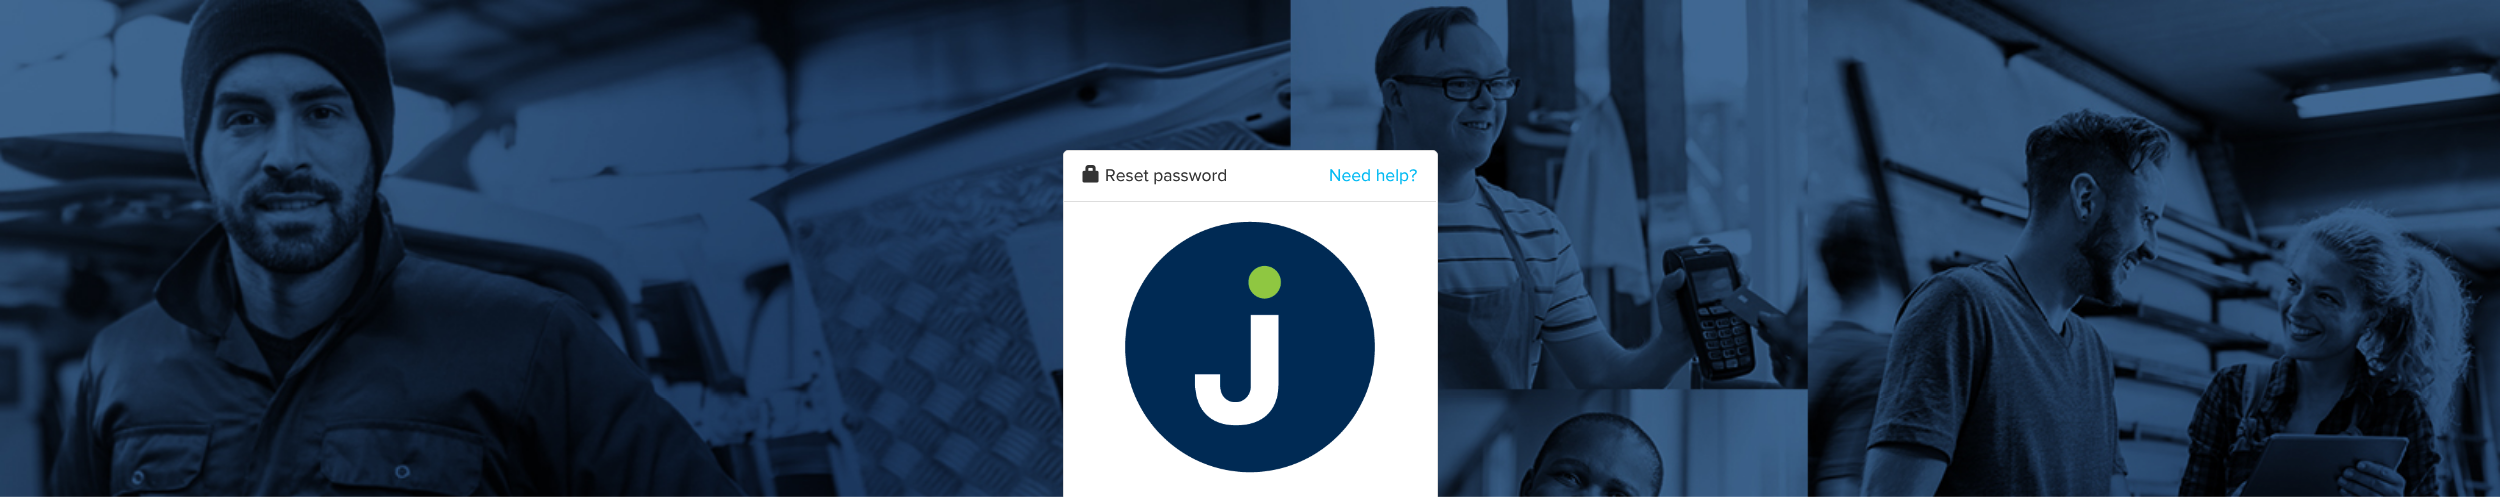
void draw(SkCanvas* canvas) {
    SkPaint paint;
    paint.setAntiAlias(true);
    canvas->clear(0xFFFFFFFF);
    canvas->drawImageRect(SkImages::DeferredFromEncodedData(SkData::MakeFromFileName("img1.png")), SkRect::MakeXYWH(0, 0, 2500, 497), SkSamplingOptions());
    paint.setColor(0xFFFFFFFF);
    canvas->drawRoundRect(SkRect::MakeXYWH(1063.5f, 150.5f, 374, 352), 4.5f, 4.5f, paint);
    paint.setStyle(SkPaint::kStroke_Style);
    paint.setStrokeWidth(1);
    paint.setColor(0xFFDDDDDD);
    canvas->drawRoundRect(SkRect::MakeXYWH(1063.5f, 150.5f, 374, 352), 4.5f, 4.5f, paint);
    paint.setStyle(SkPaint::kFill_Style);
    paint.setColor(0xFFFFFFFF);
    canvas->drawPath(SkPathBuilder().moveTo(1068, 151).lineTo(1432, 151).cubicTo(1434, 151, 1436, 153, 1436, 155).lineTo(1436, 203).lineTo(1064, 203).lineTo(1064, 155).cubicTo(1064, 153, 1066, 151, 1068, 151).close().detach(), paint);
    paint.setColor(0xFFDDDDDD);
    canvas->drawRect(SkRect::MakeXYWH(1064, 201, 372, 1), paint);
    canvas->drawImageRect(SkImages::DeferredFromEncodedData(SkData::MakeFromFileName("img2.png")), SkRect::MakeXYWH(1082, 165, 17, 18), SkSamplingOptions());
    SkFont font1(fontMgr->matchFamilyStyle("Proxima Nova", SkFontStyle::Normal()), 17.5f);
    font1.setSubpixel(true);
    paint.setColor(0xFF333333);
    canvas->drawString("Reset password", 1105, 181, font1, paint);
    paint.setColor(0xFF01BAF3);
    canvas->drawString("Need help?", 1329, 181, font1, paint);
    canvas->drawImageRect(SkImages::DeferredFromEncodedData(SkData::MakeFromFileName("img3.png")), SkRect::MakeXYWH(1125, 221, 250, 252), SkSamplingOptions());
}
